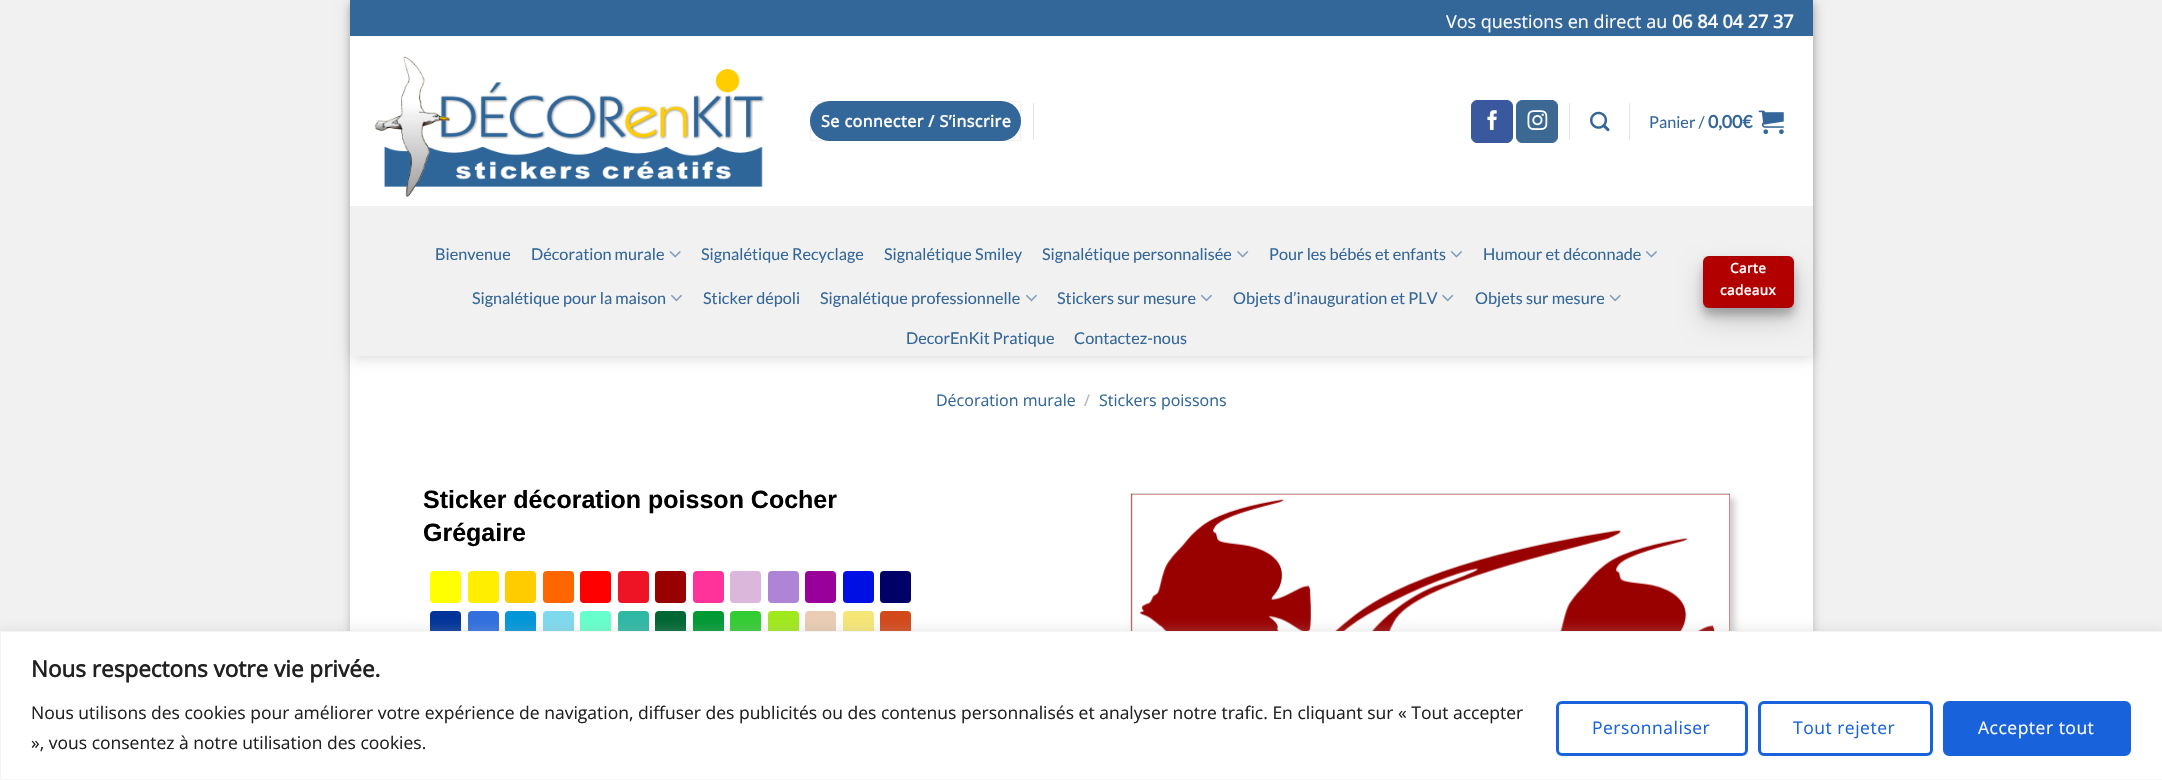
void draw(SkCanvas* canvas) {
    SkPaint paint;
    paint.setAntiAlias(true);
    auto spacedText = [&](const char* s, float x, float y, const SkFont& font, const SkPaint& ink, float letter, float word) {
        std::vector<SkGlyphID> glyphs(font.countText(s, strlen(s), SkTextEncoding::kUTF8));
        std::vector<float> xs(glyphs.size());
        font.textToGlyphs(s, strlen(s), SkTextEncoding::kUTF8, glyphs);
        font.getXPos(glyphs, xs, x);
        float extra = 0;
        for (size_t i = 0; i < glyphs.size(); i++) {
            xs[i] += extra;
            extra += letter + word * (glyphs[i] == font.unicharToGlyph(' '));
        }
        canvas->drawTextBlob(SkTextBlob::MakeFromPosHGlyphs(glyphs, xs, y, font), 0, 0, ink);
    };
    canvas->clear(0xFFF1F1F1);
    paint.setColor(0x3B000000);
    paint.setMaskFilter(SkMaskFilter::MakeBlur(kNormal_SkBlurStyle, 4));
    canvas->drawRect(SkRect::MakeXYWH(350, 4, 1463, 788), paint);
    paint.setMaskFilter(nullptr);
    paint.setColor(0xFFFFFFFF);
    canvas->drawRect(SkRect::MakeXYWH(350, 36, 1463, 595), paint);
    canvas->save();
    canvas->clipPath(SkPathBuilder(SkPathFillType::kEvenOdd).moveTo(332, 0).lineTo(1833, 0).lineTo(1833, 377).lineTo(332, 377).close().moveTo(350, 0).lineTo(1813, 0).lineTo(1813, 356).lineTo(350, 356).close().detach(), true);
    paint.setColor(0x26000000);
    paint.setMaskFilter(SkMaskFilter::MakeBlur(kNormal_SkBlurStyle, 6));
    canvas->drawRect(SkRect::MakeXYWH(351, 1, 1463, 357), paint);
    paint.setMaskFilter(nullptr);
    canvas->restore();
    paint.setColor(0xFF336699);
    canvas->drawRect(SkRect::MakeXYWH(350, 0, 1463, 36), paint);
    SkFont font1(fontMgr->matchFamilyStyle("Open Sans", SkFontStyle::Normal()), 18);
    font1.setSubpixel(true);
    paint.setColor(0xFFFFFFFF);
    canvas->drawString("Vos questions en direct au", 1446, 28, font1, paint);
    SkFont font2(fontMgr->matchFamilyStyle("Open Sans", SkFontStyle::Bold()), 18);
    font2.setSubpixel(true);
    canvas->drawString("06 84 04 27 37", 1672, 28, font2, paint);
    canvas->drawImageRect(SkImages::DeferredFromEncodedData(SkData::MakeFromFileName("img1.png")), SkRect::MakeXYWH(374, 56, 391, 142), SkSamplingOptions());
    paint.setColor(0xFF336699);
    canvas->drawRoundRect(SkRect::MakeXYWH(810, 101, 211, 40), 20, 20, paint);
    paint.setStyle(SkPaint::kStroke_Style);
    paint.setStrokeWidth(1);
    paint.setColor(0x0D000000);
    canvas->drawRect(SkRect::MakeXYWH(810.5f, 101.5f, 210, 39), paint);
    SkFont font3(fontMgr->matchFamilyStyle("Open Sans", SkFontStyle::Bold()), 16);
    font3.setSubpixel(true);
    paint.setStyle(SkPaint::kFill_Style);
    paint.setColor(0xFFFFFFFF);
    spacedText("Se connecter / S’inscrire", 821, 127, font3, paint, 0.5f, 0);
    paint.setColor(0xFFE6E6E6);
    canvas->drawRect(SkRect::MakeXYWH(1033, 103, 1, 37), paint);
    paint.setColor(0xFF3A589D);
    canvas->drawRoundRect(SkRect::MakeXYWH(1471.5f, 100.5f, 41, 42), 5.5f, 5.5f, paint);
    paint.setStyle(SkPaint::kStroke_Style);
    canvas->drawRoundRect(SkRect::MakeXYWH(1471.5f, 100.5f, 41, 42), 5.5f, 5.5f, paint);
    canvas->drawImageRect(SkImages::DeferredFromEncodedData(SkData::MakeFromFileName("img2.png")), SkRect::MakeXYWH(1487, 110, 10, 20), SkSamplingOptions());
    paint.setStyle(SkPaint::kFill_Style);
    paint.setColor(0xFF3B6994);
    canvas->drawRoundRect(SkRect::MakeXYWH(1516.5f, 100.5f, 41, 42), 5.5f, 5.5f, paint);
    paint.setStyle(SkPaint::kStroke_Style);
    canvas->drawRoundRect(SkRect::MakeXYWH(1516.5f, 100.5f, 41, 42), 5.5f, 5.5f, paint);
    canvas->drawImageRect(SkImages::DeferredFromEncodedData(SkData::MakeFromFileName("img3.png")), SkRect::MakeXYWH(1527, 110, 21, 20), SkSamplingOptions());
    paint.setStyle(SkPaint::kFill_Style);
    paint.setColor(0xFFE6E6E6);
    canvas->drawRect(SkRect::MakeXYWH(1569, 103, 1, 37), paint);
    canvas->drawImageRect(SkImages::DeferredFromEncodedData(SkData::MakeFromFileName("img4.png")), SkRect::MakeXYWH(1590, 111, 20, 21), SkSamplingOptions());
    canvas->drawRect(SkRect::MakeXYWH(1629, 103, 1, 37), paint);
    SkFont font4(fontMgr->matchFamilyStyle("Lato", SkFontStyle::Normal()), 16.25f);
    font4.setSubpixel(true);
    paint.setColor(0xFF336699);
    canvas->drawString("Panier /", 1649, 128, font4, paint);
    SkFont font5(fontMgr->matchFamilyStyle("Lato", SkFontStyle::Bold()), 17.5f);
    font5.setSubpixel(true);
    canvas->drawString("0,00€", 1708, 128, font5, paint);
    canvas->drawImageRect(SkImages::DeferredFromEncodedData(SkData::MakeFromFileName("img5.png")), SkRect::MakeXYWH(1758, 110, 26, 24), SkSamplingOptions());
    paint.setColor(0xFFF1F1F1);
    canvas->drawRect(SkRect::MakeXYWH(350, 206, 1463, 150), paint);
    paint.setColor(0xFF336699);
    canvas->drawString("Bienvenue", 435, 260, font4, paint);
    canvas->drawString("Décoration murale", 531, 260, font4, paint);
    canvas->drawImageRect(SkImages::DeferredFromEncodedData(SkData::MakeFromFileName("img6.png")), SkRect::MakeXYWH(669, 251, 12, 7), SkSamplingOptions());
    canvas->drawString("Signalétique Recyclage", 701, 260, font4, paint);
    canvas->drawString("Signalétique Smiley", 884, 260, font4, paint);
    canvas->drawString("Signalétique personnalisée", 1042, 260, font4, paint);
    canvas->drawImageRect(SkImages::DeferredFromEncodedData(SkData::MakeFromFileName("img7.png")), SkRect::MakeXYWH(1237, 251, 12, 7), SkSamplingOptions());
    canvas->drawString("Pour les bébés et enfants", 1269, 260, font4, paint);
    canvas->drawImageRect(SkImages::DeferredFromEncodedData(SkData::MakeFromFileName("img8.png")), SkRect::MakeXYWH(1451, 251, 11, 7), SkSamplingOptions());
    canvas->drawString("Humour et déconnade", 1483, 260, font4, paint);
    canvas->drawImageRect(SkImages::DeferredFromEncodedData(SkData::MakeFromFileName("img8.png")), SkRect::MakeXYWH(1646, 251, 11, 7), SkSamplingOptions());
    canvas->drawString("Signalétique pour la maison", 472, 304, font4, paint);
    canvas->drawImageRect(SkImages::DeferredFromEncodedData(SkData::MakeFromFileName("img9.png")), SkRect::MakeXYWH(670, 294, 12, 8), SkSamplingOptions());
    canvas->drawString("Sticker dépoli", 703, 304, font4, paint);
    canvas->drawString("Signalétique professionnelle", 820, 304, font4, paint);
    canvas->drawImageRect(SkImages::DeferredFromEncodedData(SkData::MakeFromFileName("img9.png")), SkRect::MakeXYWH(1025, 294, 12, 8), SkSamplingOptions());
    canvas->drawString("Stickers sur mesure", 1057, 304, font4, paint);
    canvas->drawImageRect(SkImages::DeferredFromEncodedData(SkData::MakeFromFileName("img9.png")), SkRect::MakeXYWH(1200, 294, 12, 8), SkSamplingOptions());
    canvas->drawString("Objets d’inauguration et PLV", 1233, 304, font4, paint);
    canvas->drawImageRect(SkImages::DeferredFromEncodedData(SkData::MakeFromFileName("img10.png")), SkRect::MakeXYWH(1442, 294, 12, 8), SkSamplingOptions());
    canvas->drawString("Objets sur mesure", 1475, 304, font4, paint);
    canvas->drawImageRect(SkImages::DeferredFromEncodedData(SkData::MakeFromFileName("img11.png")), SkRect::MakeXYWH(1609, 294, 12, 8), SkSamplingOptions());
    canvas->drawString("DecorEnKit Pratique", 906, 344, font4, paint);
    canvas->drawString("Contactez-nous", 1074, 344, font4, paint);
    paint.setColor(0x38000000);
    paint.setMaskFilter(SkMaskFilter::MakeBlur(kNormal_SkBlurStyle, 4));
    canvas->drawRoundRect(SkRect::MakeXYWH(1703, 264, 91, 51), 6, 6, paint);
    paint.setMaskFilter(nullptr);
    paint.setColor(0x30000000);
    paint.setMaskFilter(SkMaskFilter::MakeBlur(kNormal_SkBlurStyle, 12.5f));
    canvas->drawRoundRect(SkRect::MakeXYWH(1703, 269, 91, 51), 6, 6, paint);
    paint.setMaskFilter(nullptr);
    paint.setColor(0xFFB20000);
    canvas->drawRoundRect(SkRect::MakeXYWH(1703, 256, 91, 52), 6, 6, paint);
    paint.setStyle(SkPaint::kStroke_Style);
    paint.setColor(0x0D000000);
    canvas->drawRect(SkRect::MakeXYWH(1703.5f, 256.5f, 90, 51), paint);
    SkFont font6(fontMgr->matchFamilyStyle("Open Sans", SkFontStyle::Bold()), 13.5f);
    font6.setSubpixel(true);
    paint.setStyle(SkPaint::kFill_Style);
    paint.setColor(0xFFFFFFFF);
    spacedText("Carte", 1730, 273, font6, paint, 0.5f, 0);
    spacedText("cadeaux", 1720, 295, font6, paint, 0.5f, 0);
    SkFont font7(fontMgr->matchFamilyStyle("Open Sans", SkFontStyle::Normal()), 16);
    font7.setSubpixel(true);
    paint.setColor(0xFF336699);
    canvas->drawString("Décoration murale", 936, 406, font7, paint);
    paint.setColor(0xFFB2B2B2);
    canvas->drawString("/", 1084, 406, font7, paint);
    paint.setColor(0xFF336699);
    canvas->drawString("Stickers poissons", 1099, 406, font7, paint);
    paint.setColor(0xFFFFFF00);
    canvas->drawRoundRect(SkRect::MakeXYWH(430, 571, 31, 32), 4, 4, paint);
    paint.setColor(0xFFFFEE00);
    canvas->drawRoundRect(SkRect::MakeXYWH(468, 571, 31, 32), 4, 4, paint);
    paint.setColor(0xFFFFCC00);
    canvas->drawRoundRect(SkRect::MakeXYWH(505, 571, 31, 32), 4, 4, paint);
    paint.setColor(0xFFFF6600);
    canvas->drawRoundRect(SkRect::MakeXYWH(543, 571, 31, 32), 4, 4, paint);
    paint.setColor(0xFFFF0000);
    canvas->drawRoundRect(SkRect::MakeXYWH(580, 571, 31, 32), 4, 4, paint);
    paint.setColor(0xFFEF1326);
    canvas->drawRoundRect(SkRect::MakeXYWH(618, 571, 31, 32), 4, 4, paint);
    paint.setColor(0xFF990000);
    canvas->drawRoundRect(SkRect::MakeXYWH(655, 571, 31, 32), 4, 4, paint);
    paint.setColor(0xFFFF3399);
    canvas->drawRoundRect(SkRect::MakeXYWH(693, 571, 31, 32), 4, 4, paint);
    paint.setColor(0xFFDBB7DB);
    canvas->drawRoundRect(SkRect::MakeXYWH(730, 571, 31, 32), 4, 4, paint);
    paint.setColor(0xFFAE84D7);
    canvas->drawRoundRect(SkRect::MakeXYWH(768, 571, 31, 32), 4, 4, paint);
    paint.setColor(0xFF990099);
    canvas->drawRoundRect(SkRect::MakeXYWH(805, 571, 31, 32), 4, 4, paint);
    paint.setColor(0xFF000FE4);
    canvas->drawRoundRect(SkRect::MakeXYWH(843, 571, 31, 32), 4, 4, paint);
    paint.setColor(0xFF000066);
    canvas->drawRoundRect(SkRect::MakeXYWH(880, 571, 31, 32), 4, 4, paint);
    paint.setColor(0xFFCFCFCF);
    paint.setMaskFilter(SkMaskFilter::MakeBlur(kNormal_SkBlurStyle, 3));
    canvas->drawRect(SkRect::MakeXYWH(1135, 498, 600, 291), paint);
    paint.setMaskFilter(nullptr);
    paint.setColor(0xFF990000);
    canvas->drawRect(SkRect::MakeXYWH(1131, 494, 599, 137), paint);
    paint.setColor(0xFFCFCFCF);
    canvas->drawRect(SkRect::MakeXYWH(1130, 493, 600, 1), paint);
    paint.setColor(0xFFEBEBEB);
    canvas->drawRect(SkRect::MakeXYWH(1130, 493, 1, 138), paint);
    canvas->drawImageRect(SkImages::DeferredFromEncodedData(SkData::MakeFromFileName("img12.png")), SkRect::MakeXYWH(1131, 493, 599, 138), SkSamplingOptions());
    paint.setColor(0xFF003399);
    canvas->drawRoundRect(SkRect::MakeXYWH(430, 611, 31, 32), 4, 4, paint);
    paint.setColor(0xFF316FDE);
    canvas->drawRoundRect(SkRect::MakeXYWH(468, 611, 31, 32), 4, 4, paint);
    paint.setColor(0xFF0096D7);
    canvas->drawRoundRect(SkRect::MakeXYWH(505, 611, 31, 32), 4, 4, paint);
    paint.setColor(0xFF7DD9EC);
    canvas->drawRoundRect(SkRect::MakeXYWH(543, 611, 31, 32), 4, 4, paint);
    paint.setColor(0xFF66FFCC);
    canvas->drawRoundRect(SkRect::MakeXYWH(580, 611, 31, 32), 4, 4, paint);
    paint.setColor(0xFF2EB8A4);
    canvas->drawRoundRect(SkRect::MakeXYWH(618, 611, 31, 32), 4, 4, paint);
    paint.setColor(0xFF006633);
    canvas->drawRoundRect(SkRect::MakeXYWH(655, 611, 31, 32), 4, 4, paint);
    paint.setColor(0xFF009933);
    canvas->drawRoundRect(SkRect::MakeXYWH(693, 611, 31, 32), 4, 4, paint);
    paint.setColor(0xFF33CC33);
    canvas->drawRoundRect(SkRect::MakeXYWH(730, 611, 31, 32), 4, 4, paint);
    paint.setColor(0xFFA0E91B);
    canvas->drawRoundRect(SkRect::MakeXYWH(768, 611, 31, 32), 4, 4, paint);
    paint.setColor(0xFFE9CCB3);
    canvas->drawRoundRect(SkRect::MakeXYWH(805, 611, 31, 32), 4, 4, paint);
    paint.setColor(0xFFF6E676);
    canvas->drawRoundRect(SkRect::MakeXYWH(843, 611, 31, 32), 4, 4, paint);
    paint.setColor(0xFFD2481A);
    canvas->drawRoundRect(SkRect::MakeXYWH(880, 611, 31, 32), 4, 4, paint);
    SkFont font8(fontMgr->matchFamilyStyle("Liberation Sans", SkFontStyle::Bold()), 25);
    font8.setSubpixel(true);
    paint.setColor(0xFF000000);
    canvas->drawString("Sticker décoration poisson Cocher", 423, 508, font8, paint);
    canvas->drawString("Grégaire", 423, 541, font8, paint);
    paint.setColor(0x4DACABAB);
    paint.setMaskFilter(SkMaskFilter::MakeBlur(kNormal_SkBlurStyle, 6));
    canvas->drawRect(SkRect::MakeXYWH(0, 630, 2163, 149), paint);
    paint.setMaskFilter(nullptr);
    paint.setColor(0xFFFFFFFF);
    canvas->drawRect(SkRect::MakeXYWH(0.5f, 631.5f, 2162, 148), paint);
    paint.setStyle(SkPaint::kStroke_Style);
    paint.setColor(0xFFF4F4F4);
    canvas->drawRect(SkRect::MakeXYWH(0.5f, 631.5f, 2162, 148), paint);
    SkFont font9(fontMgr->matchFamilyStyle("Open Sans", SkFontStyle::Bold()), 22.5f);
    font9.setSubpixel(true);
    paint.setStyle(SkPaint::kFill_Style);
    paint.setColor(0xFF212121);
    canvas->drawString("Nous respectons votre vie privée.", 31, 677, font9, paint);
    SkFont font10(fontMgr->matchFamilyStyle("Open Sans", SkFontStyle::Normal()), 17.5f);
    font10.setSubpixel(true);
    canvas->drawString("Nous utilisons des cookies pour améliorer votre expérience de navigation, diffuser des publicités ou des contenus personnalisés et analyser notre trafic. En cliquant sur « Tout accepter", 31, 719, font10, paint);
    canvas->drawString("», vous consentez à notre utilisation des cookies.", 31, 749, font10, paint);
    paint.setStyle(SkPaint::kStroke_Style);
    paint.setStrokeWidth(3);
    paint.setColor(0xFF1863DC);
    canvas->drawRoundRect(SkRect::MakeXYWH(1557.5f, 702.5f, 189, 52), 4.5f, 4.5f, paint);
    paint.setStyle(SkPaint::kFill_Style);
    spacedText("Personnaliser", 1592, 734, font10, paint, 0.5f, 0);
    paint.setStyle(SkPaint::kStroke_Style);
    canvas->drawRoundRect(SkRect::MakeXYWH(1759.5f, 702.5f, 172, 52), 4.5f, 4.5f, paint);
    paint.setStyle(SkPaint::kFill_Style);
    spacedText("Tout rejeter", 1793, 734, font10, paint, 0.5f, 0);
    canvas->drawRoundRect(SkRect::MakeXYWH(1944.5f, 702.5f, 185, 52), 4.5f, 4.5f, paint);
    paint.setStyle(SkPaint::kStroke_Style);
    canvas->drawRoundRect(SkRect::MakeXYWH(1944.5f, 702.5f, 185, 52), 4.5f, 4.5f, paint);
    paint.setStyle(SkPaint::kFill_Style);
    paint.setColor(0xFFFFFFFF);
    spacedText("Accepter tout", 1978, 734, font10, paint, 0.5f, 0);
}
